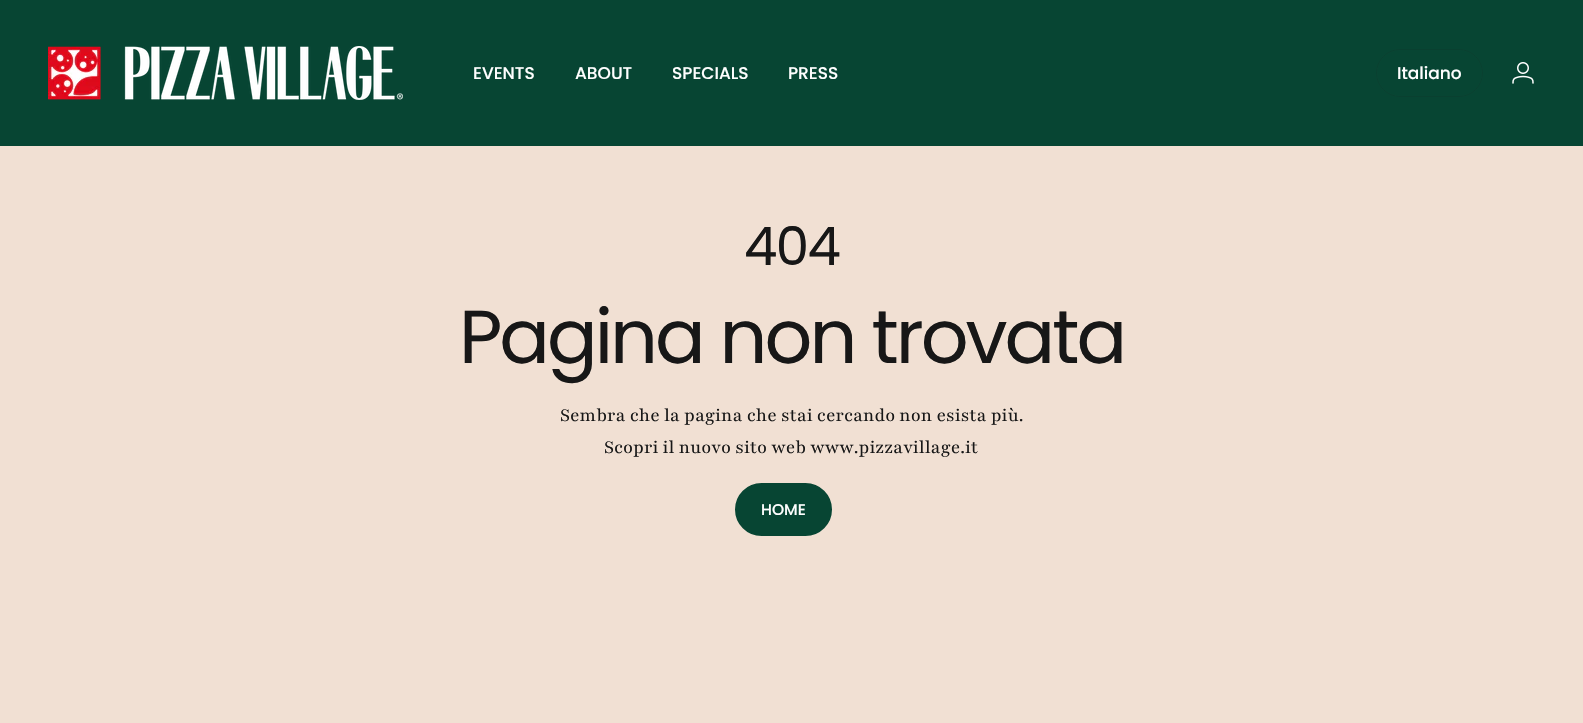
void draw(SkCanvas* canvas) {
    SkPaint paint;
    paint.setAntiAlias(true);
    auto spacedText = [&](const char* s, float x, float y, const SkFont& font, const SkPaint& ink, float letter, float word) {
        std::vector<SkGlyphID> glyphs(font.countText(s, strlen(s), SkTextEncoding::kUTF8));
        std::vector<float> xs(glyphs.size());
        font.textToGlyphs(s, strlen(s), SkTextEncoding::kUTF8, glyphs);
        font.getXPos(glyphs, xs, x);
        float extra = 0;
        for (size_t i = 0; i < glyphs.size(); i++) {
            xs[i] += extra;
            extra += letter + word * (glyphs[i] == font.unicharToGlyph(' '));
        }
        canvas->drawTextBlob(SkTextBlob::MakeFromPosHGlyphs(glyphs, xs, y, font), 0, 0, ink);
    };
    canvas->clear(0xFFF1E0D3);
    paint.setColor(0xFF074533);
    canvas->drawRect(SkRect::MakeXYWH(0, 0, 1583, 146), paint);
    canvas->drawImageRect(SkImages::DeferredFromEncodedData(SkData::MakeFromFileName("img1.png")), SkRect::MakeXYWH(48, 46, 355, 54), SkSamplingOptions());
    SkFont font1(fontMgr->matchFamilyStyle("Poppins", SkFontStyle(500, SkFontStyle::kNormal_Width, SkFontStyle::kUpright_Slant)), 17);
    font1.setSubpixel(true);
    paint.setColor(0xFFFFFFFF);
    canvas->drawString("EVENTS", 473, 79, font1, paint);
    canvas->drawString("ABOUT", 575, 79, font1, paint);
    canvas->drawString("SPECIALS", 672, 79, font1, paint);
    canvas->drawString("PRESS", 788, 79, font1, paint);
    paint.setStyle(SkPaint::kStroke_Style);
    paint.setStrokeWidth(1);
    paint.setColor(0xFF094030);
    canvas->drawRoundRect(SkRect::MakeXYWH(1376.5f, 49.5f, 106, 47), 23.5f, 23.5f, paint);
    paint.setStyle(SkPaint::kFill_Style);
    paint.setColor(0xFFFFFFFF);
    canvas->drawString("Italiano", 1397, 79, font1, paint);
    canvas->drawImageRect(SkImages::DeferredFromEncodedData(SkData::MakeFromFileName("img2.png")), SkRect::MakeXYWH(1512, 62, 22, 22), SkSamplingOptions());
    SkFont font2(fontMgr->matchFamilyStyle("Poppins", SkFontStyle::Normal()), 53);
    font2.setSubpixel(true);
    paint.setColor(0xFF171717);
    spacedText("404", 744, 265, font2, paint, -1.5f, 0);
    SkFont font3(fontMgr->matchFamilyStyle("Poppins", SkFontStyle::Normal()), 74.9f);
    font3.setSubpixel(true);
    spacedText("Pagina non trovata", 459, 363, font3, paint, -3, 0);
    SkFont font4(fontMgr->matchFamilyStyle("Playfair", SkFontStyle::Normal()), 20);
    font4.setSubpixel(true);
    canvas->drawString("Sembra che la pagina che stai cercando non esista più.", 560, 421, font4, paint);
    canvas->drawString("Scopri il nuovo sito web www.pizzavillage.it", 604, 453, font4, paint);
    paint.setColor(0xFF074533);
    canvas->drawRoundRect(SkRect::MakeXYWH(736, 484, 95, 51), 25.5f, 25.5f, paint);
    paint.setStyle(SkPaint::kStroke_Style);
    paint.setStrokeWidth(2);
    canvas->drawRoundRect(SkRect::MakeXYWH(736, 484, 95, 51), 25.5f, 25.5f, paint);
    SkFont font5(fontMgr->matchFamilyStyle("Poppins", SkFontStyle(500, SkFontStyle::kNormal_Width, SkFontStyle::kUpright_Slant)), 15.5f);
    font5.setSubpixel(true);
    paint.setStyle(SkPaint::kFill_Style);
    paint.setColor(0xFFFFFFFF);
    canvas->drawString("HOME", 761, 515, font5, paint);
}
